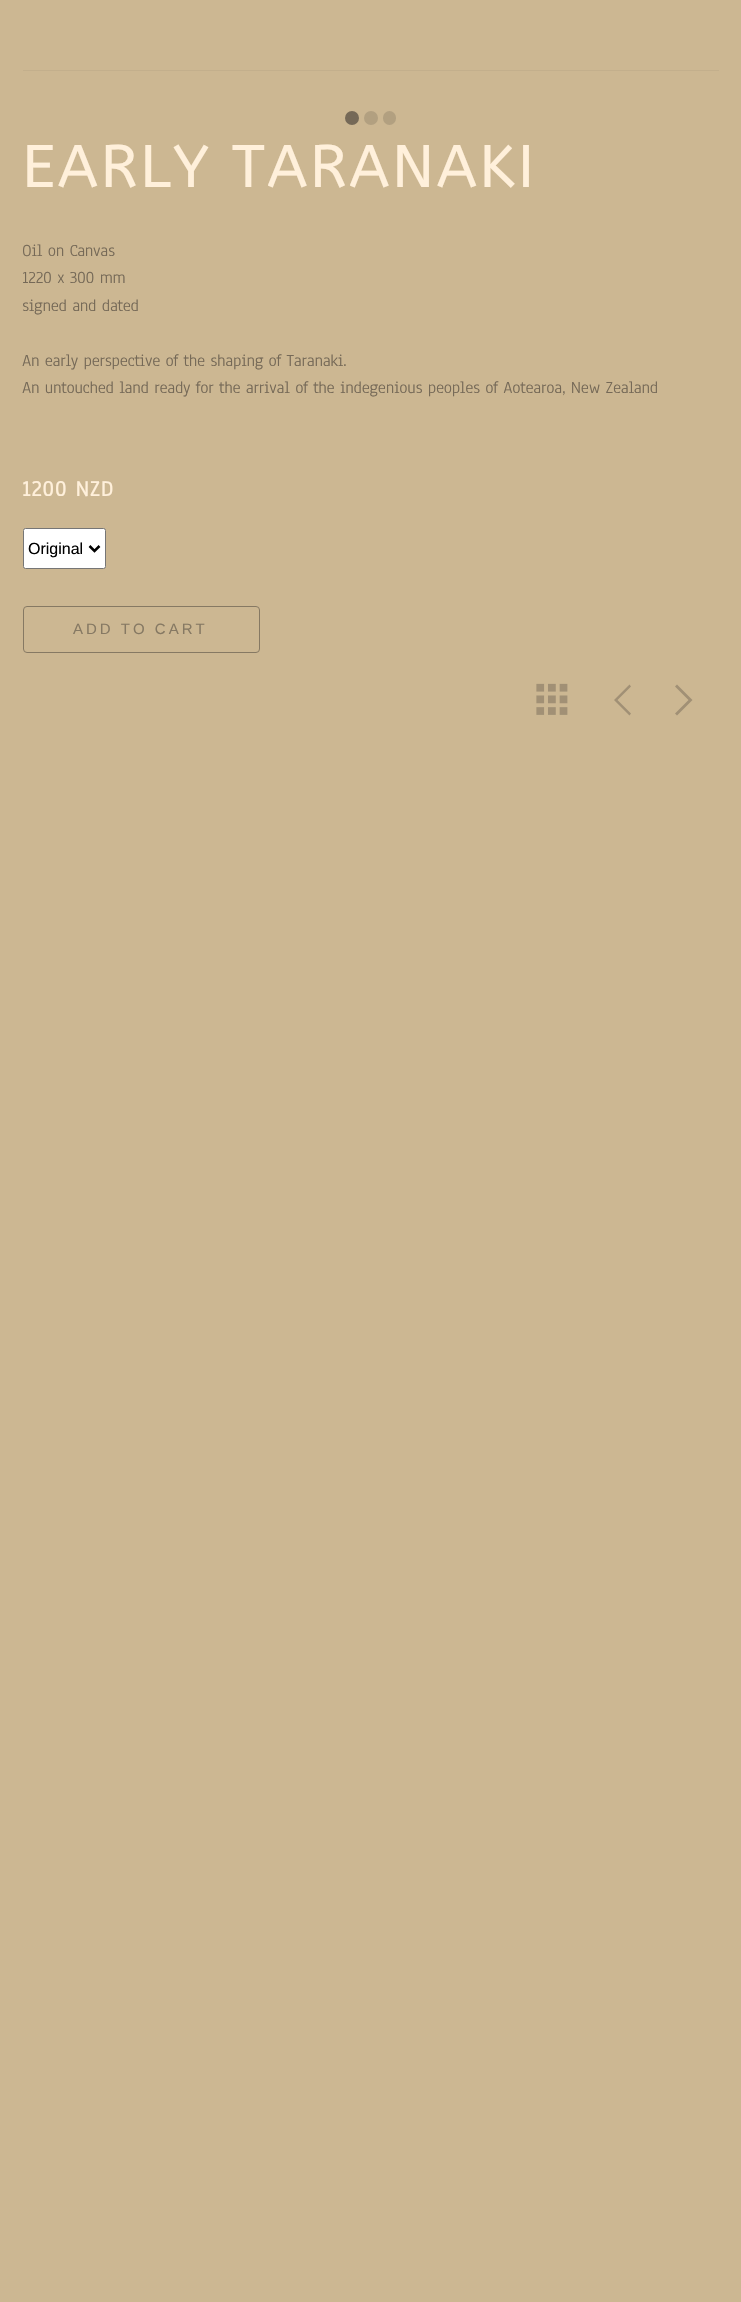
void draw(SkCanvas* canvas) {
    SkPaint paint;
    paint.setAntiAlias(true);
    auto spacedText = [&](const char* s, float x, float y, const SkFont& font, const SkPaint& ink, float letter, float word) {
        std::vector<SkGlyphID> glyphs(font.countText(s, strlen(s), SkTextEncoding::kUTF8));
        std::vector<float> xs(glyphs.size());
        font.textToGlyphs(s, strlen(s), SkTextEncoding::kUTF8, glyphs);
        font.getXPos(glyphs, xs, x);
        float extra = 0;
        for (size_t i = 0; i < glyphs.size(); i++) {
            xs[i] += extra;
            extra += letter + word * (glyphs[i] == font.unicharToGlyph(' '));
        }
        canvas->drawTextBlob(SkTextBlob::MakeFromPosHGlyphs(glyphs, xs, y, font), 0, 0, ink);
    };
    canvas->clear(0xFFCCB792);
    paint.setColor(0xFFC3AF8C);
    canvas->drawRect(SkRect::MakeXYWH(23, 70, 696, 1), paint);
    paint.setColor(0xFF756957);
    canvas->drawCircle(352, 118, 7, paint);
    paint.setColor(0xFFB2A080);
    canvas->drawCircle(371, 118, 7, paint);
    canvas->drawRoundRect(SkRect::MakeXYWH(383, 111, 13, 14), 6.5f, 6.5f, paint);
    SkFont font1(fontMgr->matchFamilyStyle("ABeeZee", SkFontStyle::Normal()), 60);
    font1.setSubpixel(true);
    paint.setColor(0xFFFFF0DB);
    spacedText("EARLY TARANAKI", 22, 187, font1, paint, 2.5f, 0);
    SkFont font2(fontMgr->matchFamilyStyle("Anaheim", SkFontStyle::Normal()), 17.5f);
    font2.setSubpixel(true);
    paint.setColor(0xFF756957);
    spacedText("Oil on Canvas", 22, 256, font2, paint, -0.3f, 0);
    spacedText("1220 x 300 mm", 22, 283, font2, paint, -0.3f, 0);
    spacedText("signed and dated", 22, 311, font2, paint, -0.3f, 0);
    spacedText("An early perspective of the shaping of Taranaki.", 22, 366, font2, paint, -0.3f, 0);
    spacedText("An untouched land ready for the arrival of the indegenious peoples of Aotearoa, New Zealand", 22, 393, font2, paint, -0.3f, 0);
    SkFont font3(fontMgr->matchFamilyStyle("Anaheim", SkFontStyle::Bold()), 22.5f);
    font3.setSubpixel(true);
    paint.setColor(0xFFFFF0DB);
    spacedText("1200 NZD", 22, 496, font3, paint, 1, 0);
    paint.setColor(0xFFFFFFFF);
    canvas->drawRoundRect(SkRect::MakeXYWH(23.5f, 528.5f, 82, 40), 2, 2, paint);
    paint.setStyle(SkPaint::kStroke_Style);
    paint.setStrokeWidth(1);
    paint.setColor(0xFF767676);
    canvas->drawRoundRect(SkRect::MakeXYWH(23.5f, 528.5f, 82, 40), 2, 2, paint);
    paint.setStrokeWidth(2.5f);
    paint.setColor(0xFF000000);
    canvas->drawPath(SkPathBuilder().moveTo(89.5f, 546).lineTo(94.5f, 551).lineTo(99.5f, 546).detach(), paint);
    SkFont font4(fontMgr->matchFamilyStyle("Liberation Sans", SkFontStyle::Normal()), 16);
    font4.setSubpixel(true);
    paint.setStyle(SkPaint::kFill_Style);
    canvas->drawString("Original", 28, 554, font4, paint);
    paint.setStyle(SkPaint::kStroke_Style);
    paint.setStrokeWidth(1);
    paint.setColor(0xFF867963);
    canvas->drawRoundRect(SkRect::MakeXYWH(23.5f, 606.5f, 236, 46), 3.5f, 3.5f, paint);
    SkFont font5(fontMgr->matchFamilyStyle("Liberation Sans", SkFontStyle::Normal()), 15);
    font5.setSubpixel(true);
    paint.setStyle(SkPaint::kFill_Style);
    spacedText("ADD TO CART", 73, 634, font5, paint, 3, 0);
    canvas->drawImageRect(SkImages::DeferredFromEncodedData(SkData::MakeFromFileName("img1.png")), SkRect::MakeXYWH(536, 683, 32, 32), SkSamplingOptions());
    paint.setColor(0xFFA19075);
    canvas->drawPath(SkPathBuilder().moveTo(629.5f, 715.5f).lineTo(631, 713.5f).lineTo(617.5f, 700).lineTo(631, 686.5f).lineTo(629.5f, 684.5f).lineTo(614, 700).close().detach(), paint);
    canvas->drawPath(SkPathBuilder().moveTo(692.5f, 700).lineTo(677, 684.5f).lineTo(675, 686.5f).lineTo(688.5f, 700).lineTo(675, 713.5f).lineTo(677, 715.5f).close().detach(), paint);
}
